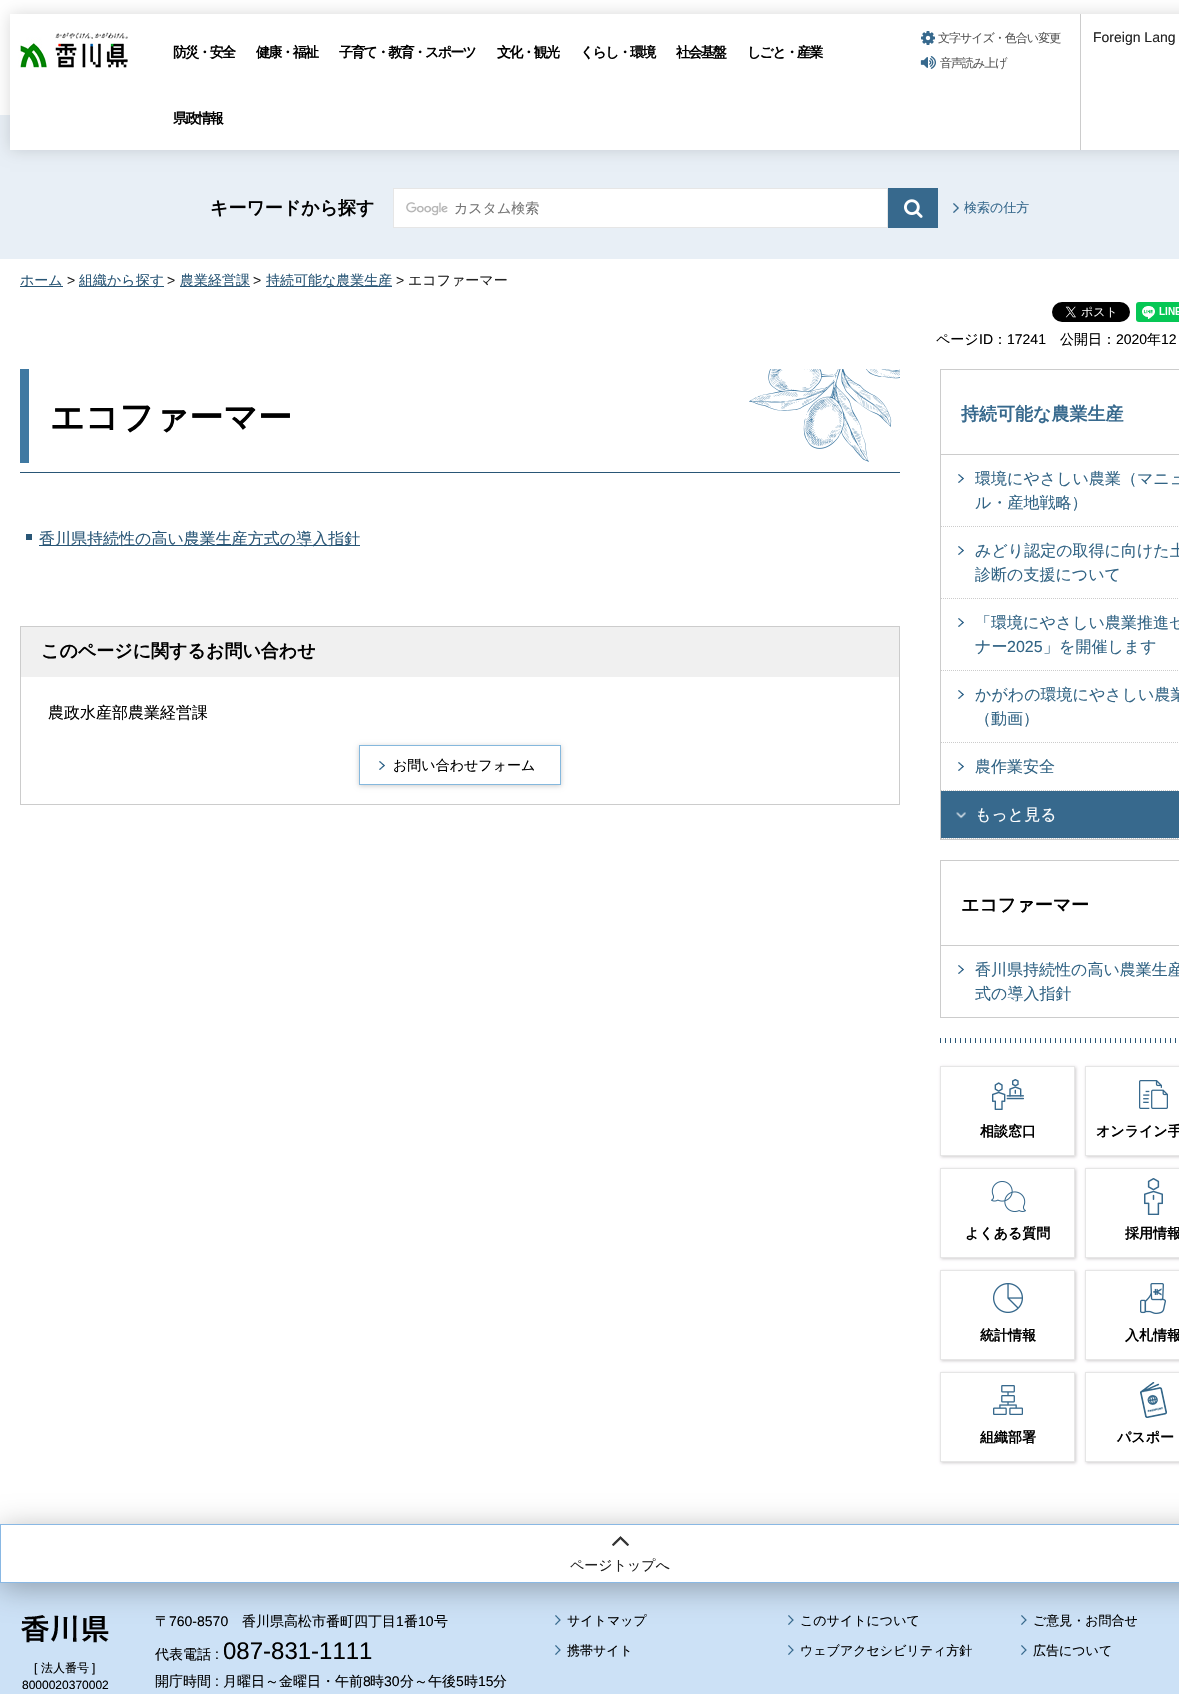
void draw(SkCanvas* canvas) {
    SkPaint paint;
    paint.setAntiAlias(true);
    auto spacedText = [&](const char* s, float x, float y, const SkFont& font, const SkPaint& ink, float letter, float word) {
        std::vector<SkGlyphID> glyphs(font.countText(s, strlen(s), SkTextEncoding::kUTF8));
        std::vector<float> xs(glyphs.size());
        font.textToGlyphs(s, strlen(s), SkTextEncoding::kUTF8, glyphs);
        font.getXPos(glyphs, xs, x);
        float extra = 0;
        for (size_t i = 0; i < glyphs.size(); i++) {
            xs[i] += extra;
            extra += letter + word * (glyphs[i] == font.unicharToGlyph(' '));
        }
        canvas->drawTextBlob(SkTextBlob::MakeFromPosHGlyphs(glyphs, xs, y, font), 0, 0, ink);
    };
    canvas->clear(0xFFFFFFFF);
    paint.setColor(0xFFE8EFF6);
    canvas->drawRect(SkRect::MakeXYWH(0, 115, 1179, 144), paint);
    paint.setColor(0x26000000);
    paint.setMaskFilter(SkMaskFilter::MakeBlur(kNormal_SkBlurStyle, 7.5f));
    canvas->drawRect(SkRect::MakeXYWH(10, 14, 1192, 136), paint);
    paint.setMaskFilter(nullptr);
    paint.setColor(0xFFFFFFFF);
    canvas->drawRect(SkRect::MakeXYWH(10, 14, 1169, 136), paint);
    canvas->drawImageRect(SkImages::DeferredFromEncodedData(SkData::MakeFromFileName("img1.png")), SkRect::MakeXYWH(18, 31, 110, 37), SkSamplingOptions());
    canvas->drawImageRect(SkImages::DeferredFromEncodedData(SkData::MakeFromFileName("img2.png")), SkRect::MakeXYWH(921, 31, 14, 14), SkSamplingOptions());
    SkFont font1(fontMgr->matchFamilyStyle("WenQuanYi Zen Hei", SkFontStyle(500, SkFontStyle::kNormal_Width, SkFontStyle::kUpright_Slant)), 12);
    font1.setSubpixel(true);
    paint.setColor(0xFF555555);
    spacedText("文字サイズ・色合い変更", 938, 42, font1, paint, -1, 0);
    canvas->drawImageRect(SkImages::DeferredFromEncodedData(SkData::MakeFromFileName("img3.png")), SkRect::MakeXYWH(920, 56, 16, 13), SkSamplingOptions());
    spacedText("音声読み上げ", 940, 67, font1, paint, -1, 0);
    paint.setColor(0xFFCCCCCC);
    canvas->drawRect(SkRect::MakeXYWH(1080, 14, 1, 136), paint);
    SkFont font2(fontMgr->matchFamilyStyle("Liberation Sans", SkFontStyle::Normal()), 14);
    font2.setSubpixel(true);
    paint.setColor(0xFF222222);
    canvas->drawString("Foreign Lang", 1093, 42, font2, paint);
    SkFont font3(fontMgr->matchFamilyStyle("WenQuanYi Zen Hei", SkFontStyle::Bold()), 14);
    font3.setSubpixel(true);
    paint.setColor(0xFF000000);
    spacedText("防災・安全", 173, 57, font3, paint, -1.75f, 0);
    spacedText("健康・福祉", 256, 57, font3, paint, -1.75f, 0);
    spacedText("子育て・教育・スポーツ", 339, 57, font3, paint, -1.75f, 0);
    spacedText("文化・観光", 497, 57, font3, paint, -1.75f, 0);
    spacedText("くらし・環境", 580, 57, font3, paint, -1.75f, 0);
    spacedText("社会基盤", 676, 57, font3, paint, -1.75f, 0);
    spacedText("しごと・産業", 747, 57, font3, paint, -1.75f, 0);
    spacedText("県政情報", 173, 123, font3, paint, -1.75f, 0);
    SkFont font4(fontMgr->matchFamilyStyle("WenQuanYi Zen Hei", SkFontStyle::Bold()), 18);
    font4.setSubpixel(true);
    canvas->drawString("キーワードから探す", 210, 214, font4, paint);
    paint.setColor(0xFFFFFFFF);
    canvas->drawRect(SkRect::MakeXYWH(394, 189, 493, 38), paint);
    canvas->drawImageRect(SkImages::DeferredFromEncodedData(SkData::MakeFromFileName("img4.png")), SkRect::MakeXYWH(406, 202, 42, 14), SkSamplingOptions());
    paint.setStyle(SkPaint::kStroke_Style);
    paint.setStrokeWidth(1);
    paint.setColor(0xFFE6E6E6);
    canvas->drawRect(SkRect::MakeXYWH(393.5f, 188.5f, 494, 39), paint);
    SkFont font5(fontMgr->matchFamilyStyle("WenQuanYi Zen Hei", SkFontStyle(500, SkFontStyle::kNormal_Width, SkFontStyle::kUpright_Slant)), 14);
    font5.setSubpixel(true);
    paint.setStyle(SkPaint::kFill_Style);
    paint.setColor(0xFF757575);
    canvas->drawString("カスタム検索", 454, 213, font5, paint);
    paint.setColor(0xFF37698D);
    canvas->drawRect(SkRect::MakeXYWH(888, 188, 50, 40), paint);
    canvas->drawImageRect(SkImages::DeferredFromEncodedData(SkData::MakeFromFileName("img5.png")), SkRect::MakeXYWH(904, 199, 19, 19), SkSamplingOptions());
    canvas->drawImageRect(SkImages::DeferredFromEncodedData(SkData::MakeFromFileName("img6.png")), SkRect::MakeXYWH(953, 203, 6, 10), SkSamplingOptions());
    SkFont font6(fontMgr->matchFamilyStyle("WenQuanYi Zen Hei", SkFontStyle(500, SkFontStyle::kNormal_Width, SkFontStyle::kUpright_Slant)), 13);
    font6.setSubpixel(true);
    canvas->drawString("検索の仕方", 964, 212, font6, paint);
    paint.setColor(0xFF295676);
    canvas->drawRect(SkRect::MakeXYWH(20, 286, 43, 1), paint);
    canvas->drawString("ホーム", 20, 285, font5, paint);
    paint.setColor(0xFF222222);
    canvas->drawString(">", 67, 285, font2, paint);
    paint.setColor(0xFF295676);
    canvas->drawRect(SkRect::MakeXYWH(79, 286, 85, 1), paint);
    canvas->drawString("組織から探す", 79, 285, font5, paint);
    paint.setColor(0xFF222222);
    canvas->drawString(">", 167, 285, font2, paint);
    paint.setColor(0xFF295676);
    canvas->drawRect(SkRect::MakeXYWH(180, 286, 70, 1), paint);
    canvas->drawString("農業経営課", 180, 285, font5, paint);
    paint.setColor(0xFF222222);
    canvas->drawString(">", 253, 285, font2, paint);
    paint.setColor(0xFF295676);
    canvas->drawRect(SkRect::MakeXYWH(266, 286, 126, 1), paint);
    canvas->drawString("持続可能な農業生産", 266, 285, font5, paint);
    paint.setColor(0xFF222222);
    canvas->drawString(">", 396, 285, font2, paint);
    canvas->drawString("エコファーマー", 408, 285, font5, paint);
    canvas->drawImageRect(SkImages::DeferredFromEncodedData(SkData::MakeFromFileName("img7.png")), SkRect::MakeXYWH(1052, 302, 78, 20), SkSamplingOptions());
    canvas->drawImageRect(SkImages::DeferredFromEncodedData(SkData::MakeFromFileName("img8.png")), SkRect::MakeXYWH(1136, 302, 43, 20), SkSamplingOptions());
    paint.setColor(0xFF000000);
    canvas->drawString("ページ", 936, 344, font5, paint);
    canvas->drawString("ID", 979, 344, font2, paint);
    canvas->drawString("：", 993, 344, font5, paint);
    canvas->drawString("17241", 1007, 344, font2, paint);
    canvas->drawString("公開日：", 1060, 344, font5, paint);
    canvas->drawString("2020", 1116, 344, font2, paint);
    canvas->drawString("年", 1147, 344, font5, paint);
    canvas->drawString("12", 1161, 344, font2, paint);
    canvas->drawImageRect(SkImages::DeferredFromEncodedData(SkData::MakeFromFileName("img9.png")), SkRect::MakeXYWH(20, 369, 880, 94), SkSamplingOptions());
    paint.setColor(0xFF295676);
    canvas->drawRect(SkRect::MakeXYWH(20, 472, 880, 1), paint);
    SkFont font7(fontMgr->matchFamilyStyle("WenQuanYi Zen Hei", SkFontStyle::Bold()), 34);
    font7.setSubpixel(true);
    paint.setColor(0xFF000000);
    canvas->drawString("エコファーマー", 50, 429, font7, paint);
    paint.setColor(0xFF295676);
    canvas->drawRect(SkRect::MakeXYWH(26, 534, 6, 6), paint);
    canvas->drawRect(SkRect::MakeXYWH(39, 545, 321, 1), paint);
    SkFont font8(fontMgr->matchFamilyStyle("WenQuanYi Zen Hei", SkFontStyle(500, SkFontStyle::kNormal_Width, SkFontStyle::kUpright_Slant)), 16);
    font8.setSubpixel(true);
    canvas->drawString("香川県持続性の高い農業生産方式の導入指針", 39, 544, font8, paint);
    paint.setStyle(SkPaint::kStroke_Style);
    paint.setColor(0xFFCCCCCC);
    canvas->drawRect(SkRect::MakeXYWH(20.5f, 626.5f, 879, 178), paint);
    paint.setStyle(SkPaint::kFill_Style);
    paint.setColor(0xFFF0F0F0);
    canvas->drawRect(SkRect::MakeXYWH(21, 627, 878, 50), paint);
    paint.setColor(0xFF000000);
    canvas->drawString("このページに関するお問い合わせ", 41, 657, font4, paint);
    canvas->drawString("農政水産部農業経営課", 48, 718, font8, paint);
    canvas->save();
    canvas->clipPath(SkPathBuilder(SkPathFillType::kEvenOdd).moveTo(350, 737).lineTo(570, 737).lineTo(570, 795).lineTo(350, 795).close().moveTo(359, 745).lineTo(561, 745).lineTo(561, 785).lineTo(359, 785).close().detach(), true);
    paint.setColor(0x33000000);
    paint.setMaskFilter(SkMaskFilter::MakeBlur(kNormal_SkBlurStyle, 2.5f));
    canvas->drawRect(SkRect::MakeXYWH(359, 746, 202, 40), paint);
    paint.setMaskFilter(nullptr);
    canvas->restore();
    canvas->drawImageRect(SkImages::DeferredFromEncodedData(SkData::MakeFromFileName("img10.png")), SkRect::MakeXYWH(379, 761, 6, 9), SkSamplingOptions());
    paint.setStyle(SkPaint::kStroke_Style);
    paint.setColor(0xFF85B8DD);
    canvas->drawRect(SkRect::MakeXYWH(359.5f, 745.5f, 201, 39), paint);
    paint.setStyle(SkPaint::kFill_Style);
    paint.setColor(0xFF000000);
    canvas->drawString("お問い合わせフォーム", 393, 770, font5, paint);
    paint.setStyle(SkPaint::kStroke_Style);
    paint.setColor(0xFFCCCCCC);
    canvas->drawRect(SkRect::MakeXYWH(940.5f, 369.5f, 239, 470), paint);
    paint.setStyle(SkPaint::kFill_Style);
    canvas->drawRect(SkRect::MakeXYWH(941, 454, 238, 1), paint);
    paint.setColor(0xFF37698D);
    canvas->drawString("持続可能な農業生産", 961, 420, font4, paint);
    paint.setStyle(SkPaint::kStroke_Style);
    paint.setColor(0xFFCCCCCC);
    paint.setPathEffect(SkDashPathEffect::Make({{1, 1}}, 0));
    canvas->drawPath(SkPathBuilder().moveTo(941, 526.5f).lineTo(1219, 526.5f).detach(), paint);
    paint.setPathEffect(nullptr);
    canvas->drawImageRect(SkImages::DeferredFromEncodedData(SkData::MakeFromFileName("img11.png")), SkRect::MakeXYWH(958, 474, 6, 9), SkSamplingOptions());
    paint.setStyle(SkPaint::kFill_Style);
    paint.setColor(0xFF326485);
    canvas->drawString("環境にやさしい農業（マニュ", 975, 484, font8, paint);
    canvas->drawString("ル・産地戦略）", 975, 508, font8, paint);
    paint.setStyle(SkPaint::kStroke_Style);
    paint.setColor(0xFFCCCCCC);
    paint.setPathEffect(SkDashPathEffect::Make({{1, 1}}, 0));
    canvas->drawPath(SkPathBuilder().moveTo(941, 598.5f).lineTo(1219, 598.5f).detach(), paint);
    paint.setPathEffect(nullptr);
    canvas->drawImageRect(SkImages::DeferredFromEncodedData(SkData::MakeFromFileName("img11.png")), SkRect::MakeXYWH(958, 546, 6, 9), SkSamplingOptions());
    paint.setStyle(SkPaint::kFill_Style);
    paint.setColor(0xFF326485);
    canvas->drawString("みどり認定の取得に向けた土", 975, 556, font8, paint);
    canvas->drawString("診断の支援について", 975, 580, font8, paint);
    paint.setStyle(SkPaint::kStroke_Style);
    paint.setColor(0xFFCCCCCC);
    paint.setPathEffect(SkDashPathEffect::Make({{1, 1}}, 0));
    canvas->drawPath(SkPathBuilder().moveTo(941, 670.5f).lineTo(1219, 670.5f).detach(), paint);
    paint.setPathEffect(nullptr);
    canvas->drawImageRect(SkImages::DeferredFromEncodedData(SkData::MakeFromFileName("img11.png")), SkRect::MakeXYWH(958, 618, 6, 9), SkSamplingOptions());
    paint.setStyle(SkPaint::kFill_Style);
    paint.setColor(0xFF326485);
    canvas->drawString("「環境にやさしい農業推進セ", 975, 628, font8, paint);
    canvas->drawString("ナー", 975, 652, font8, paint);
    SkFont font9(fontMgr->matchFamilyStyle("Liberation Sans", SkFontStyle::Normal()), 16);
    font9.setSubpixel(true);
    canvas->drawString("2025", 1007, 652, font9, paint);
    canvas->drawString("」を開催します", 1043, 652, font8, paint);
    paint.setStyle(SkPaint::kStroke_Style);
    paint.setColor(0xFFCCCCCC);
    paint.setPathEffect(SkDashPathEffect::Make({{1, 1}}, 0));
    canvas->drawPath(SkPathBuilder().moveTo(941, 742.5f).lineTo(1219, 742.5f).detach(), paint);
    paint.setPathEffect(nullptr);
    canvas->drawImageRect(SkImages::DeferredFromEncodedData(SkData::MakeFromFileName("img11.png")), SkRect::MakeXYWH(958, 690, 6, 9), SkSamplingOptions());
    paint.setStyle(SkPaint::kFill_Style);
    paint.setColor(0xFF326485);
    canvas->drawString("かがわの環境にやさしい農業", 975, 700, font8, paint);
    canvas->drawString("（動画）", 975, 724, font8, paint);
    paint.setStyle(SkPaint::kStroke_Style);
    paint.setColor(0xFFCCCCCC);
    paint.setPathEffect(SkDashPathEffect::Make({{1, 1}}, 0));
    canvas->drawPath(SkPathBuilder().moveTo(941, 790.5f).lineTo(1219, 790.5f).detach(), paint);
    paint.setPathEffect(nullptr);
    canvas->drawImageRect(SkImages::DeferredFromEncodedData(SkData::MakeFromFileName("img11.png")), SkRect::MakeXYWH(958, 762, 6, 9), SkSamplingOptions());
    paint.setStyle(SkPaint::kFill_Style);
    paint.setColor(0xFF326485);
    canvas->drawString("農作業安全", 975, 772, font8, paint);
    paint.setStyle(SkPaint::kStroke_Style);
    paint.setColor(0xFFCCCCCC);
    paint.setPathEffect(SkDashPathEffect::Make({{1, 1}}, 0));
    canvas->drawPath(SkPathBuilder().moveTo(941, 838.5f).lineTo(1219, 838.5f).detach(), paint);
    paint.setPathEffect(nullptr);
    paint.setStyle(SkPaint::kFill_Style);
    paint.setColor(0xFF37698D);
    canvas->drawRect(SkRect::MakeXYWH(941, 791, 238, 47), paint);
    canvas->drawImageRect(SkImages::DeferredFromEncodedData(SkData::MakeFromFileName("img12.png")), SkRect::MakeXYWH(956, 812, 10, 7), SkSamplingOptions());
    paint.setColor(0xFFFFFFFF);
    canvas->drawString("もっと見る", 975, 820, font8, paint);
    paint.setStyle(SkPaint::kStroke_Style);
    paint.setColor(0xFFCCCCCC);
    canvas->drawRect(SkRect::MakeXYWH(940.5f, 860.5f, 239, 157), paint);
    paint.setStyle(SkPaint::kFill_Style);
    canvas->drawRect(SkRect::MakeXYWH(941, 945, 238, 1), paint);
    paint.setColor(0xFF000000);
    canvas->drawString("エコファーマー", 961, 911, font4, paint);
    canvas->drawImageRect(SkImages::DeferredFromEncodedData(SkData::MakeFromFileName("img11.png")), SkRect::MakeXYWH(958, 965, 6, 9), SkSamplingOptions());
    paint.setColor(0xFF326485);
    canvas->drawString("香川県持続性の高い農業生産", 975, 975, font8, paint);
    canvas->drawString("式の導入指針", 975, 999, font8, paint);
    canvas->drawImageRect(SkImages::DeferredFromEncodedData(SkData::MakeFromFileName("img13.png")), SkRect::MakeXYWH(940, 1038, 236, 5), SkSamplingOptions());
    canvas->save();
    canvas->clipPath(SkPathBuilder(SkPathFillType::kEvenOdd).moveTo(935, 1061).lineTo(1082, 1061).lineTo(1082, 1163).lineTo(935, 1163).close().moveTo(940, 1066).lineTo(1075, 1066).lineTo(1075, 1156).lineTo(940, 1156).close().detach(), true);
    paint.setColor(0x330B0205);
    paint.setMaskFilter(SkMaskFilter::MakeBlur(kNormal_SkBlurStyle, 1.5f));
    canvas->drawRect(SkRect::MakeXYWH(941, 1067, 135, 90), paint);
    paint.setMaskFilter(nullptr);
    canvas->restore();
    paint.setStyle(SkPaint::kStroke_Style);
    paint.setColor(0xFFE6E6E6);
    canvas->drawRect(SkRect::MakeXYWH(940.5f, 1066.5f, 134, 89), paint);
    canvas->drawImageRect(SkImages::DeferredFromEncodedData(SkData::MakeFromFileName("img14.png")), SkRect::MakeXYWH(992, 1079, 32, 31), SkSamplingOptions());
    paint.setStyle(SkPaint::kFill_Style);
    paint.setColor(0xFF000000);
    canvas->drawString("相談窓口", 980, 1136, font3, paint);
    canvas->save();
    canvas->clipPath(SkPathBuilder(SkPathFillType::kEvenOdd).moveTo(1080, 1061).lineTo(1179, 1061).lineTo(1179, 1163).lineTo(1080, 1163).close().moveTo(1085, 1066).lineTo(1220, 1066).lineTo(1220, 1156).lineTo(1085, 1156).close().detach(), true);
    paint.setColor(0x330B0205);
    paint.setMaskFilter(SkMaskFilter::MakeBlur(kNormal_SkBlurStyle, 1.5f));
    canvas->drawRect(SkRect::MakeXYWH(1086, 1067, 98, 90), paint);
    paint.setMaskFilter(nullptr);
    canvas->restore();
    paint.setStyle(SkPaint::kStroke_Style);
    paint.setColor(0xFFE6E6E6);
    canvas->drawRect(SkRect::MakeXYWH(1085.5f, 1066.5f, 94, 89), paint);
    canvas->drawImageRect(SkImages::DeferredFromEncodedData(SkData::MakeFromFileName("img15.png")), SkRect::MakeXYWH(1139, 1080, 29, 29), SkSamplingOptions());
    paint.setStyle(SkPaint::kFill_Style);
    paint.setColor(0xFF000000);
    canvas->drawString("オンライン手", 1096, 1136, font3, paint);
    canvas->save();
    canvas->clipPath(SkPathBuilder(SkPathFillType::kEvenOdd).moveTo(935, 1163).lineTo(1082, 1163).lineTo(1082, 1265).lineTo(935, 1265).close().moveTo(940, 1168).lineTo(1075, 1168).lineTo(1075, 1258).lineTo(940, 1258).close().detach(), true);
    paint.setColor(0x330B0205);
    paint.setMaskFilter(SkMaskFilter::MakeBlur(kNormal_SkBlurStyle, 1.5f));
    canvas->drawRect(SkRect::MakeXYWH(941, 1169, 135, 90), paint);
    paint.setMaskFilter(nullptr);
    canvas->restore();
    paint.setStyle(SkPaint::kStroke_Style);
    paint.setColor(0xFFE6E6E6);
    canvas->drawRect(SkRect::MakeXYWH(940.5f, 1168.5f, 134, 89), paint);
    canvas->drawImageRect(SkImages::DeferredFromEncodedData(SkData::MakeFromFileName("img16.png")), SkRect::MakeXYWH(991, 1181, 35, 31), SkSamplingOptions());
    paint.setStyle(SkPaint::kFill_Style);
    paint.setColor(0xFF000000);
    canvas->drawString("よくある質問", 965, 1238, font3, paint);
    canvas->save();
    canvas->clipPath(SkPathBuilder(SkPathFillType::kEvenOdd).moveTo(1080, 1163).lineTo(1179, 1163).lineTo(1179, 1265).lineTo(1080, 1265).close().moveTo(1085, 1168).lineTo(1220, 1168).lineTo(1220, 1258).lineTo(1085, 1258).close().detach(), true);
    paint.setColor(0x330B0205);
    paint.setMaskFilter(SkMaskFilter::MakeBlur(kNormal_SkBlurStyle, 1.5f));
    canvas->drawRect(SkRect::MakeXYWH(1086, 1169, 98, 90), paint);
    paint.setMaskFilter(nullptr);
    canvas->restore();
    paint.setStyle(SkPaint::kStroke_Style);
    paint.setColor(0xFFE6E6E6);
    canvas->drawRect(SkRect::MakeXYWH(1085.5f, 1168.5f, 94, 89), paint);
    canvas->drawImageRect(SkImages::DeferredFromEncodedData(SkData::MakeFromFileName("img17.png")), SkRect::MakeXYWH(1144, 1178, 19, 37), SkSamplingOptions());
    paint.setStyle(SkPaint::kFill_Style);
    paint.setColor(0xFF000000);
    canvas->drawString("採用情報", 1125, 1238, font3, paint);
    canvas->save();
    canvas->clipPath(SkPathBuilder(SkPathFillType::kEvenOdd).moveTo(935, 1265).lineTo(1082, 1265).lineTo(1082, 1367).lineTo(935, 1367).close().moveTo(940, 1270).lineTo(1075, 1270).lineTo(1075, 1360).lineTo(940, 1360).close().detach(), true);
    paint.setColor(0x330B0205);
    paint.setMaskFilter(SkMaskFilter::MakeBlur(kNormal_SkBlurStyle, 1.5f));
    canvas->drawRect(SkRect::MakeXYWH(941, 1271, 135, 90), paint);
    paint.setMaskFilter(nullptr);
    canvas->restore();
    paint.setStyle(SkPaint::kStroke_Style);
    paint.setColor(0xFFE6E6E6);
    canvas->drawRect(SkRect::MakeXYWH(940.5f, 1270.5f, 134, 89), paint);
    canvas->drawImageRect(SkImages::DeferredFromEncodedData(SkData::MakeFromFileName("img18.png")), SkRect::MakeXYWH(993, 1283, 30, 30), SkSamplingOptions());
    paint.setStyle(SkPaint::kFill_Style);
    paint.setColor(0xFF000000);
    canvas->drawString("統計情報", 980, 1340, font3, paint);
    canvas->save();
    canvas->clipPath(SkPathBuilder(SkPathFillType::kEvenOdd).moveTo(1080, 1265).lineTo(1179, 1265).lineTo(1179, 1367).lineTo(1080, 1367).close().moveTo(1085, 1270).lineTo(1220, 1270).lineTo(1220, 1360).lineTo(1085, 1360).close().detach(), true);
    paint.setColor(0x330B0205);
    paint.setMaskFilter(SkMaskFilter::MakeBlur(kNormal_SkBlurStyle, 1.5f));
    canvas->drawRect(SkRect::MakeXYWH(1086, 1271, 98, 90), paint);
    paint.setMaskFilter(nullptr);
    canvas->restore();
    paint.setStyle(SkPaint::kStroke_Style);
    paint.setColor(0xFFE6E6E6);
    canvas->drawRect(SkRect::MakeXYWH(1085.5f, 1270.5f, 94, 89), paint);
    canvas->drawImageRect(SkImages::DeferredFromEncodedData(SkData::MakeFromFileName("img19.png")), SkRect::MakeXYWH(1140, 1283, 26, 31), SkSamplingOptions());
    paint.setStyle(SkPaint::kFill_Style);
    paint.setColor(0xFF000000);
    canvas->drawString("入札情報", 1125, 1340, font3, paint);
    canvas->save();
    canvas->clipPath(SkPathBuilder(SkPathFillType::kEvenOdd).moveTo(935, 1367).lineTo(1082, 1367).lineTo(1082, 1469).lineTo(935, 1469).close().moveTo(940, 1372).lineTo(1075, 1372).lineTo(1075, 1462).lineTo(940, 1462).close().detach(), true);
    paint.setColor(0x330B0205);
    paint.setMaskFilter(SkMaskFilter::MakeBlur(kNormal_SkBlurStyle, 1.5f));
    canvas->drawRect(SkRect::MakeXYWH(941, 1373, 135, 90), paint);
    paint.setMaskFilter(nullptr);
    canvas->restore();
    paint.setStyle(SkPaint::kStroke_Style);
    paint.setColor(0xFFE6E6E6);
    canvas->drawRect(SkRect::MakeXYWH(940.5f, 1372.5f, 134, 89), paint);
    canvas->drawImageRect(SkImages::DeferredFromEncodedData(SkData::MakeFromFileName("img20.png")), SkRect::MakeXYWH(993, 1385, 30, 30), SkSamplingOptions());
    paint.setStyle(SkPaint::kFill_Style);
    paint.setColor(0xFF000000);
    canvas->drawString("組織部署", 980, 1442, font3, paint);
    canvas->save();
    canvas->clipPath(SkPathBuilder(SkPathFillType::kEvenOdd).moveTo(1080, 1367).lineTo(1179, 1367).lineTo(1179, 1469).lineTo(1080, 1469).close().moveTo(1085, 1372).lineTo(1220, 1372).lineTo(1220, 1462).lineTo(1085, 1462).close().detach(), true);
    paint.setColor(0x330B0205);
    paint.setMaskFilter(SkMaskFilter::MakeBlur(kNormal_SkBlurStyle, 1.5f));
    canvas->drawRect(SkRect::MakeXYWH(1086, 1373, 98, 90), paint);
    paint.setMaskFilter(nullptr);
    canvas->restore();
    paint.setStyle(SkPaint::kStroke_Style);
    paint.setColor(0xFFE6E6E6);
    canvas->drawRect(SkRect::MakeXYWH(1085.5f, 1372.5f, 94, 89), paint);
    canvas->drawImageRect(SkImages::DeferredFromEncodedData(SkData::MakeFromFileName("img21.png")), SkRect::MakeXYWH(1140, 1382, 27, 36), SkSamplingOptions());
    paint.setStyle(SkPaint::kFill_Style);
    paint.setColor(0xFF000000);
    canvas->drawString("パスポー", 1117, 1442, font3, paint);
    paint.setColor(0xFFCCE1F6);
    canvas->drawRect(SkRect::MakeXYWH(0, 1583, 1179, 111), paint);
    canvas->drawImageRect(SkImages::DeferredFromEncodedData(SkData::MakeFromFileName("img23.png")), SkRect::MakeXYWH(555, 1615, 6, 10), SkSamplingOptions());
    canvas->drawImageRect(SkImages::DeferredFromEncodedData(SkData::MakeFromFileName("img24.png")), SkRect::MakeXYWH(788, 1615, 6, 10), SkSamplingOptions());
    canvas->drawImageRect(SkImages::DeferredFromEncodedData(SkData::MakeFromFileName("img24.png")), SkRect::MakeXYWH(1021, 1615, 6, 10), SkSamplingOptions());
    canvas->drawImageRect(SkImages::DeferredFromEncodedData(SkData::MakeFromFileName("img27.png")), SkRect::MakeXYWH(21, 1615, 88, 28), SkSamplingOptions());
    paint.setColor(0x4D000000);
    paint.setMaskFilter(SkMaskFilter::MakeBlur(kNormal_SkBlurStyle, 15));
    canvas->drawRect(SkRect::MakeXYWH(0, 1529, 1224, 59), paint);
    paint.setMaskFilter(nullptr);
    paint.setColor(0xFFFFFFFF);
    canvas->drawRect(SkRect::MakeXYWH(1, 1525, 1178, 57), paint);
    canvas->drawImageRect(SkImages::DeferredFromEncodedData(SkData::MakeFromFileName("img22.png")), SkRect::MakeXYWH(612, 1536, 17, 10), SkSamplingOptions());
    paint.setStyle(SkPaint::kStroke_Style);
    paint.setColor(0xFF89B8E4);
    canvas->drawRect(SkRect::MakeXYWH(0.5f, 1524.5f, 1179, 58), paint);
    paint.setStyle(SkPaint::kFill_Style);
    paint.setColor(0xFF222222);
    canvas->drawString("ページトップへ", 570, 1570, font5, paint);
    paint.setColor(0xFF000000);
    canvas->drawString("〒", 155, 1626, font5, paint);
    canvas->drawString("760-8570", 169, 1626, font2, paint);
    canvas->drawString("香川県高松市番町四丁目", 242, 1626, font5, paint);
    canvas->drawString("1", 396, 1626, font2, paint);
    canvas->drawString("番", 404, 1626, font5, paint);
    canvas->drawString("10", 418, 1626, font2, paint);
    canvas->drawString("号", 434, 1626, font5, paint);
    canvas->drawString("代表電話", 155, 1659, font5, paint);
    canvas->drawString(":", 215, 1659, font2, paint);
    SkFont font10(fontMgr->matchFamilyStyle("Liberation Sans", SkFontStyle::Normal()), 24);
    font10.setSubpixel(true);
    canvas->drawString("087-831-1111", 223, 1659, font10, paint);
    canvas->drawString("開庁時間", 155, 1686, font5, paint);
    canvas->drawString(":", 215, 1686, font2, paint);
    canvas->drawString("月曜日～金曜日・午前", 223, 1686, font5, paint);
    canvas->drawString("8", 363, 1686, font2, paint);
    canvas->drawString("時", 370, 1686, font5, paint);
    canvas->drawString("30", 384, 1686, font2, paint);
    canvas->drawString("分～午後", 400, 1686, font5, paint);
    canvas->drawString("5", 456, 1686, font2, paint);
    canvas->drawString("時", 464, 1686, font5, paint);
    canvas->drawString("15", 478, 1686, font2, paint);
    canvas->drawString("分", 493, 1686, font5, paint);
    canvas->drawString("サイトマップ", 567, 1625, font6, paint);
    canvas->drawString("このサイトについて", 800, 1625, font6, paint);
    canvas->drawString("ご意見・お問合せ", 1033, 1625, font6, paint);
    canvas->drawImageRect(SkImages::DeferredFromEncodedData(SkData::MakeFromFileName("img25.png")), SkRect::MakeXYWH(555, 1645, 6, 10), SkSamplingOptions());
    canvas->drawString("携帯サイト", 567, 1655, font6, paint);
    canvas->drawImageRect(SkImages::DeferredFromEncodedData(SkData::MakeFromFileName("img26.png")), SkRect::MakeXYWH(788, 1645, 6, 10), SkSamplingOptions());
    canvas->drawString("ウェブアクセシビリティ方針", 800, 1655, font6, paint);
    canvas->drawImageRect(SkImages::DeferredFromEncodedData(SkData::MakeFromFileName("img26.png")), SkRect::MakeXYWH(1021, 1645, 6, 10), SkSamplingOptions());
    canvas->drawString("広告について", 1033, 1655, font6, paint);
    SkFont font11(fontMgr->matchFamilyStyle("Liberation Sans", SkFontStyle::Normal()), 12);
    font11.setSubpixel(true);
    canvas->drawString("[", 34, 1672, font11, paint);
    canvas->drawString("法人番号", 41, 1672, font1, paint);
    canvas->drawString("]", 92, 1672, font11, paint);
    canvas->drawString("8000020370002", 22, 1689, font11, paint);
}
